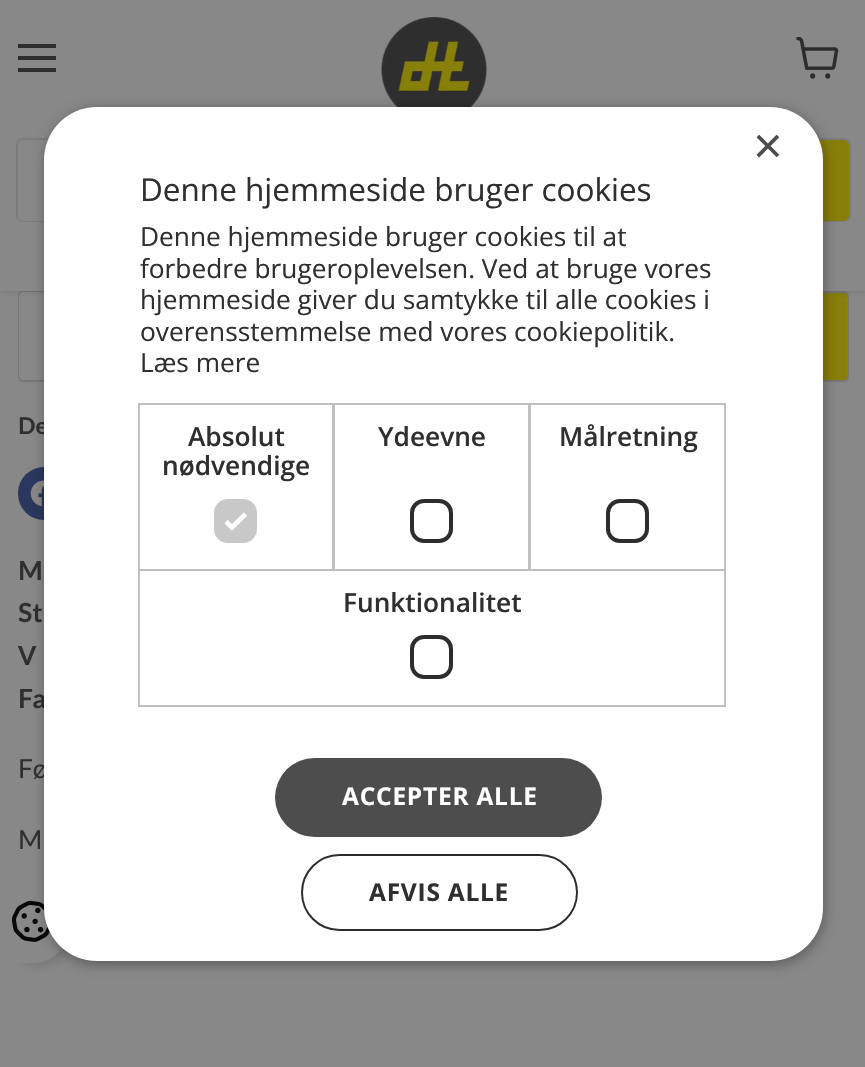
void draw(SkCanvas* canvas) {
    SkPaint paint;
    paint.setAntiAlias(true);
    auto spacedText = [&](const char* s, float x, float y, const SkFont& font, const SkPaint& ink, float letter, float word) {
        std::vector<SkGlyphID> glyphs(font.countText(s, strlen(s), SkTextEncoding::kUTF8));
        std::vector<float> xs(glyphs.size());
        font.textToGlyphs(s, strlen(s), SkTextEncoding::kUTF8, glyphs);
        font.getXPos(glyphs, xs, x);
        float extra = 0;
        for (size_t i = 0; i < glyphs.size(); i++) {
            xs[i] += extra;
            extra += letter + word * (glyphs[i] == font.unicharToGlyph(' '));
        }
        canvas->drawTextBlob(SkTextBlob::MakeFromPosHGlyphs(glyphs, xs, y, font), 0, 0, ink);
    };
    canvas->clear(0xFF888888);
    paint.setColor(0xFF777777);
    canvas->drawPath(SkPathBuilder(SkPathFillType::kEvenOdd).moveTo(23, 290).lineTo(107, 290).lineTo(107, 382).lineTo(23, 382).cubicTo(20, 382, 18, 379, 18, 376).lineTo(18, 296).cubicTo(18, 293, 20, 290, 23, 290).close().moveTo(23, 292).lineTo(107, 292).lineTo(107, 380).lineTo(23, 380).cubicTo(21, 380, 19, 378, 19, 376).lineTo(19, 296).cubicTo(19, 294, 21, 292, 23, 292).close().detach(), paint);
    paint.setColor(0xFF887F09);
    canvas->drawRoundRect(SkRect::MakeXYWH(397, 292, 451, 89), 4, 4, paint);
    paint.setStyle(SkPaint::kStroke_Style);
    paint.setStrokeWidth(2);
    paint.setColor(0xFF777777);
    canvas->drawRoundRect(SkRect::MakeXYWH(397, 292, 451, 89), 4, 4, paint);
    paint.setStyle(SkPaint::kFill_Style);
    paint.setColor(0x40494949);
    paint.setMaskFilter(SkMaskFilter::MakeBlur(kNormal_SkBlurStyle, 3.5f));
    canvas->drawRect(SkRect::MakeXYWH(0, 2, 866, 290), paint);
    paint.setMaskFilter(nullptr);
    paint.setColor(0xFF888888);
    canvas->drawRect(SkRect::MakeXYWH(0, 0, 865, 291), paint);
    canvas->drawImageRect(SkImages::DeferredFromEncodedData(SkData::MakeFromFileName("img1.png")), SkRect::MakeXYWH(381, 17, 106, 90), SkSamplingOptions());
    paint.setStyle(SkPaint::kStroke_Style);
    paint.setColor(0x33494949);
    canvas->drawRoundRect(SkRect::MakeXYWH(17, 139, 833, 82), 6, 6, paint);
    paint.setStyle(SkPaint::kFill_Style);
    paint.setColor(0xFF888888);
    canvas->drawPath(SkPathBuilder().moveTo(23, 140).lineTo(754, 140).lineTo(754, 221).lineTo(23, 221).cubicTo(20, 221, 18, 219, 18, 216).lineTo(18, 145).cubicTo(18, 142, 20, 140, 23, 140).close().detach(), paint);
    paint.setColor(0xFF887F09);
    canvas->drawPath(SkPathBuilder().moveTo(755, 141).lineTo(844, 141).cubicTo(846, 141, 848, 143, 848, 145).lineTo(848, 216).cubicTo(848, 218, 846, 220, 844, 220).lineTo(755, 220).close().detach(), paint);
    paint.setStyle(SkPaint::kStroke_Style);
    canvas->drawPath(SkPathBuilder().moveTo(755, 141).lineTo(844, 141).cubicTo(846, 141, 848, 143, 848, 145).lineTo(848, 216).cubicTo(848, 218, 846, 220, 844, 220).lineTo(755, 220).close().detach(), paint);
    paint.setStyle(SkPaint::kFill_Style);
    paint.setColor(0xFF2D2D2D);
    canvas->drawRect(SkRect::MakeXYWH(18, 44, 38, 4), paint);
    canvas->drawRect(SkRect::MakeXYWH(18, 56, 38, 4), paint);
    canvas->drawRect(SkRect::MakeXYWH(18, 68, 38, 4), paint);
    canvas->drawImageRect(SkImages::DeferredFromEncodedData(SkData::MakeFromFileName("img2.png")), SkRect::MakeXYWH(796, 37, 43, 42), SkSamplingOptions());
    SkFont font1(fontMgr->matchFamilyStyle("Lato", SkFontStyle::Bold()), 23);
    font1.setSubpixel(true);
    paint.setColor(0xFF2F2F2F);
    canvas->drawString("De", 18, 434, font1, paint);
    paint.setColor(0xFF2A375E);
    canvas->drawRoundRect(SkRect::MakeXYWH(18, 467, 52, 53), 26, 26, paint);
    canvas->drawImageRect(SkImages::DeferredFromEncodedData(SkData::MakeFromFileName("img3.png")), SkRect::MakeXYWH(30, 480, 14, 27), SkSamplingOptions());
    SkFont font2(fontMgr->matchFamilyStyle("Lato", SkFontStyle::Bold()), 26.25f);
    font2.setSubpixel(true);
    paint.setColor(0xFF2F2F2F);
    canvas->drawString("M", 18, 580, font2, paint);
    canvas->drawString("St", 18, 622, font2, paint);
    canvas->drawString("V", 18, 665, font2, paint);
    canvas->drawString("Fa", 18, 708, font2, paint);
    SkFont font3(fontMgr->matchFamilyStyle("Lato", SkFontStyle::Normal()), 26.25f);
    font3.setSubpixel(true);
    canvas->drawString("Fø", 18, 778, font3, paint);
    canvas->drawString("M", 18, 849, font3, paint);
    paint.setColor(0x1A090909);
    paint.setMaskFilter(SkMaskFilter::MakeBlur(kNormal_SkBlurStyle, 5));
    canvas->drawRoundRect(SkRect::MakeXYWH(5, 891, 69, 77), 35, 35, paint);
    paint.setMaskFilter(nullptr);
    paint.setColor(0xFF888888);
    canvas->drawPath(SkPathBuilder().moveTo(0, 886).lineTo(33, 886).cubicTo(52.5f, 886, 68, 901.5f, 68, 921).lineTo(68, 928).cubicTo(68, 947.5f, 52.5f, 963, 33, 963).lineTo(0, 963).close().detach(), paint);
    canvas->drawImageRect(SkImages::DeferredFromEncodedData(SkData::MakeFromFileName("img4.png")), SkRect::MakeXYWH(11, 900, 39, 42), SkSamplingOptions());
    paint.setColor(0x59000000);
    paint.setMaskFilter(SkMaskFilter::MakeBlur(kNormal_SkBlurStyle, 7));
    canvas->drawRoundRect(SkRect::MakeXYWH(46, 110, 778, 854), 53, 53, paint);
    paint.setMaskFilter(nullptr);
    paint.setColor(0xFFFFFFFF);
    canvas->drawRoundRect(SkRect::MakeXYWH(44, 107, 779, 854), 53, 53, paint);
    SkFont font4(fontMgr->matchFamilyStyle("Liberation Sans", SkFontStyle::Normal()), 51);
    font4.setSubpixel(true);
    paint.setColor(0xFF4D4D4D);
    canvas->drawString("×", 753, 163, font4, paint);
    SkFont font5(fontMgr->matchFamilyStyle("Open Sans", SkFontStyle::Normal()), 31.5f);
    font5.setSubpixel(true);
    paint.setColor(0xFF2F2F2F);
    canvas->drawString("Denne hjemmeside bruger cookies", 140, 201, font5, paint);
    SkFont font6(fontMgr->matchFamilyStyle("Open Sans", SkFontStyle::Normal()), 26.25f);
    font6.setSubpixel(true);
    canvas->drawString("Denne hjemmeside bruger cookies til at", 140, 246, font6, paint);
    canvas->drawString("forbedre brugeroplevelsen. Ved at bruge vores", 140, 278, font6, paint);
    canvas->drawString("hjemmeside giver du samtykke til alle cookies i", 140, 309, font6, paint);
    canvas->drawString("overensstemmelse med vores cookiepolitik.", 140, 341, font6, paint);
    canvas->drawString("Læs mere", 140, 372, font6, paint);
    paint.setStyle(SkPaint::kStroke_Style);
    paint.setColor(0xFFC0C0C0);
    canvas->drawRect(SkRect::MakeXYWH(139, 404, 194, 166), paint);
    SkFont font7(fontMgr->matchFamilyStyle("Open Sans", SkFontStyle(600, SkFontStyle::kNormal_Width, SkFontStyle::kUpright_Slant)), 26.25f);
    font7.setSubpixel(true);
    paint.setStyle(SkPaint::kFill_Style);
    paint.setColor(0xFF2F2F2F);
    canvas->drawString("Absolut", 188, 446, font7, paint);
    canvas->drawString("nødvendige", 162, 475, font7, paint);
    paint.setColor(0xFFC8C8C8);
    canvas->drawRoundRect(SkRect::MakeXYWH(214, 499, 43, 44), 14, 14, paint);
    paint.setStyle(SkPaint::kStroke_Style);
    paint.setStrokeWidth(4.6f);
    paint.setColor(0xFFFFFFFF);
    canvas->drawPath(SkPathBuilder().moveTo(226, 521.5f).lineTo(232, 527.5f).lineTo(245.5f, 514).detach(), paint);
    paint.setStrokeWidth(2);
    paint.setColor(0xFFC0C0C0);
    canvas->drawRect(SkRect::MakeXYWH(334, 404, 195, 166), paint);
    paint.setStyle(SkPaint::kFill_Style);
    paint.setColor(0xFF2F2F2F);
    canvas->drawString("Ydeevne", 378, 446, font7, paint);
    paint.setStyle(SkPaint::kStroke_Style);
    paint.setStrokeWidth(4);
    paint.setColor(0xFF2D2D2D);
    canvas->drawRoundRect(SkRect::MakeXYWH(412, 501, 39, 40), 12, 12, paint);
    paint.setStrokeWidth(2);
    paint.setColor(0xFFC0C0C0);
    canvas->drawRect(SkRect::MakeXYWH(530, 404, 195, 166), paint);
    paint.setStyle(SkPaint::kFill_Style);
    paint.setColor(0xFF2F2F2F);
    canvas->drawString("Målretning", 559, 446, font7, paint);
    paint.setStyle(SkPaint::kStroke_Style);
    paint.setStrokeWidth(4);
    paint.setColor(0xFF2D2D2D);
    canvas->drawRoundRect(SkRect::MakeXYWH(608, 501, 39, 40), 12, 12, paint);
    paint.setStrokeWidth(2);
    paint.setColor(0xFFC0C0C0);
    canvas->drawRect(SkRect::MakeXYWH(139, 570, 586, 136), paint);
    paint.setStyle(SkPaint::kFill_Style);
    paint.setColor(0xFF2F2F2F);
    canvas->drawString("Funktionalitet", 343, 612, font7, paint);
    paint.setStyle(SkPaint::kStroke_Style);
    paint.setStrokeWidth(4);
    paint.setColor(0xFF2D2D2D);
    canvas->drawRoundRect(SkRect::MakeXYWH(412, 637, 39, 40), 12, 12, paint);
    paint.setStyle(SkPaint::kFill_Style);
    paint.setColor(0xFF4D4D4D);
    canvas->drawRoundRect(SkRect::MakeXYWH(275, 758, 327, 79), 39.5f, 39.5f, paint);
    SkFont font8(fontMgr->matchFamilyStyle("Open Sans", SkFontStyle::Bold()), 24.5f);
    font8.setSubpixel(true);
    paint.setColor(0xFFFFFFFF);
    spacedText("ACCEPTER ALLE", 342, 805, font8, paint, 0.75f, 0);
    paint.setStyle(SkPaint::kStroke_Style);
    paint.setStrokeWidth(2);
    paint.setColor(0xFF2D2D2D);
    canvas->drawRoundRect(SkRect::MakeXYWH(302, 855, 275, 75), 37.5f, 37.5f, paint);
    paint.setStyle(SkPaint::kFill_Style);
    paint.setColor(0xFF2F2F2F);
    spacedText("AFVIS ALLE", 369, 901, font8, paint, 0.75f, 0);
}
